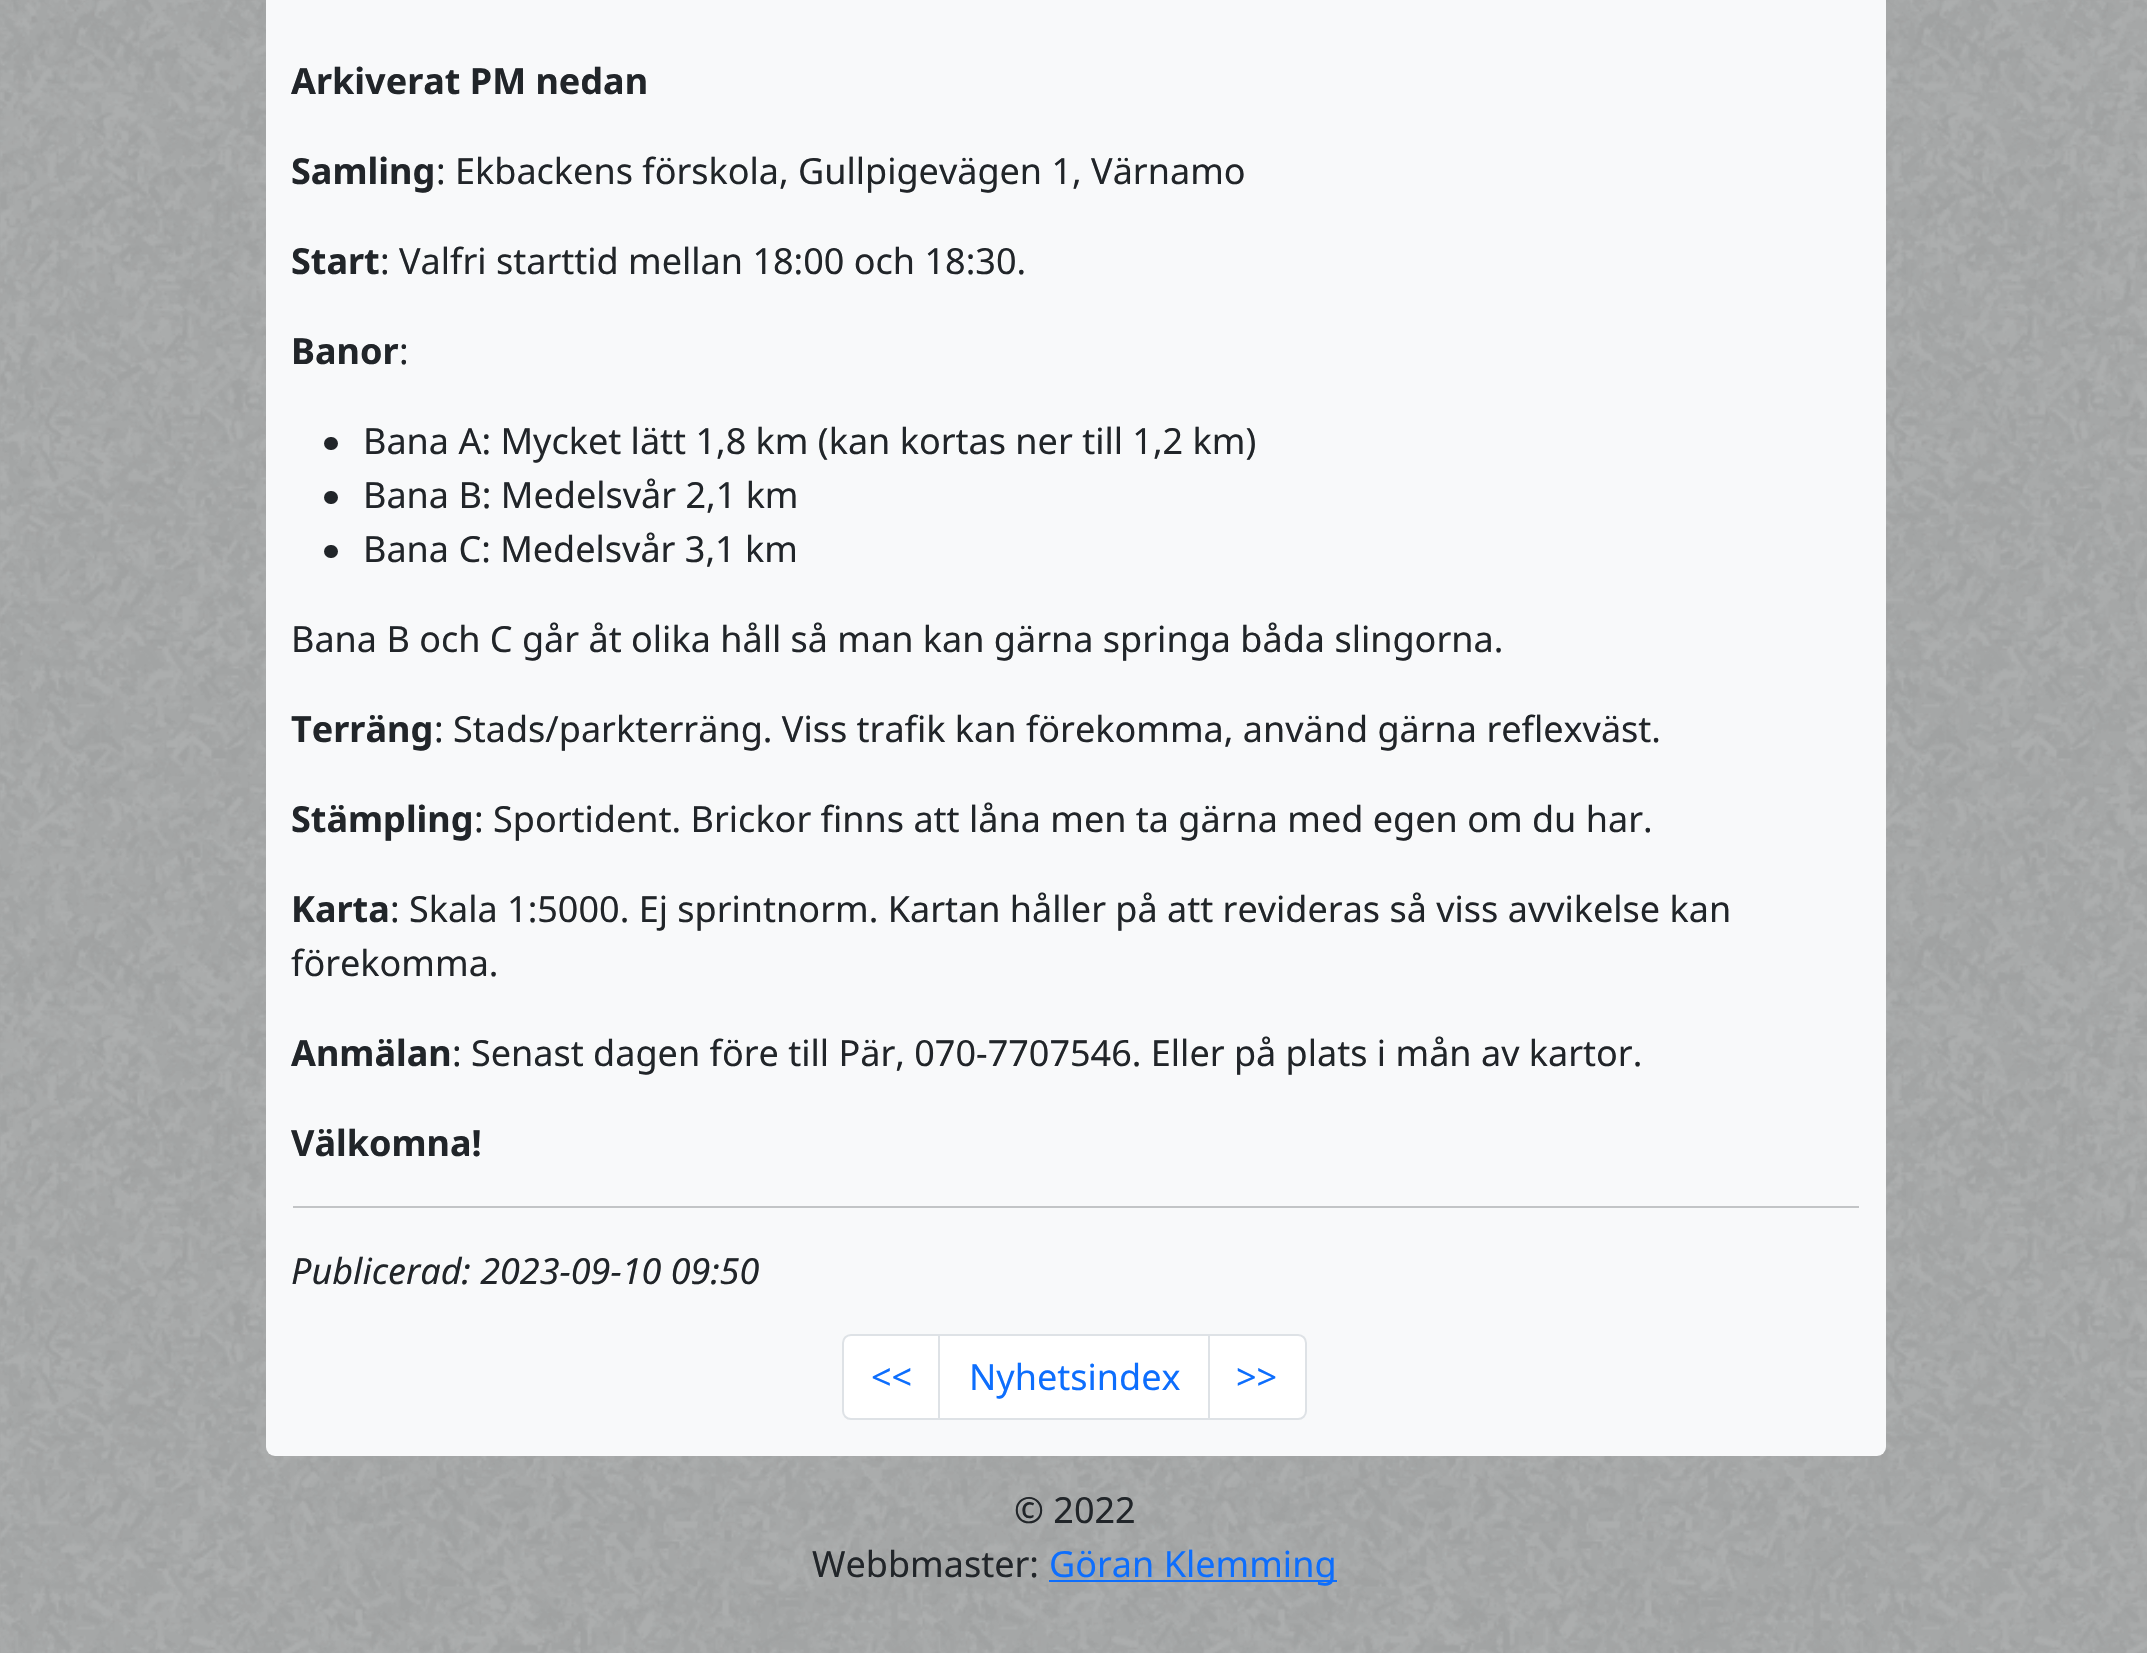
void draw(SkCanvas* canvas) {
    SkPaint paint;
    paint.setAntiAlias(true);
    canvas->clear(0xFF8C8C8C);
    canvas->drawImageRect(SkImages::DeferredFromEncodedData(SkData::MakeFromFileName("img1.png")), SkRect::MakeXYWH(0, 0, 2147, 1653), SkSamplingOptions());
    paint.setColor(0xFFF8F9FA);
    canvas->drawRoundRect(SkRect::MakeXYWH(266, -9, 1620, 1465), 9, 9, paint);
    SkFont font1(fontMgr->matchFamilyStyle("Noto Sans", SkFontStyle::Bold()), 36);
    font1.setSubpixel(true);
    paint.setColor(0xFF212529);
    canvas->drawString("Arkiverat PM nedan", 291, 94, font1, paint);
    canvas->drawString("Samling", 291, 184, font1, paint);
    SkFont font2(fontMgr->matchFamilyStyle("Noto Sans", SkFontStyle::Normal()), 36);
    font2.setSubpixel(true);
    canvas->drawString(": Ekbackens förskola, Gullpigevägen 1, Värnamo", 436, 184, font2, paint);
    canvas->drawString("Start", 291, 274, font1, paint);
    canvas->drawString(": Valfri starttid mellan 18:00 och 18:30.", 380, 274, font2, paint);
    canvas->drawString("Banor", 291, 364, font1, paint);
    canvas->drawString(":", 399, 364, font2, paint);
    canvas->drawRoundRect(SkRect::MakeXYWH(324, 437, 14, 13), 6.5f, 6.5f, paint);
    canvas->drawString("Bana A: Mycket lätt 1,8 km (kan kortas ner till 1,2 km)", 363, 454, font2, paint);
    canvas->drawRoundRect(SkRect::MakeXYWH(324, 491, 14, 13), 6.5f, 6.5f, paint);
    canvas->drawString("Bana B: Medelsvår 2,1 km", 363, 508, font2, paint);
    canvas->drawRoundRect(SkRect::MakeXYWH(324, 545, 14, 13), 6.5f, 6.5f, paint);
    canvas->drawString("Bana C: Medelsvår 3,1 km", 363, 562, font2, paint);
    canvas->drawString("Bana B och C går åt olika håll så man kan gärna springa båda slingorna.", 291, 652, font2, paint);
    canvas->drawString("Terräng", 291, 742, font1, paint);
    canvas->drawString(": Stads/parkterräng. Viss trafik kan förekomma, använd gärna reflexväst.", 434, 742, font2, paint);
    canvas->drawString("Stämpling", 291, 832, font1, paint);
    canvas->drawString(": Sportident. Brickor finns att låna men ta gärna med egen om du har.", 474, 832, font2, paint);
    canvas->drawString("Karta", 291, 922, font1, paint);
    canvas->drawString(": Skala 1:5000. Ej sprintnorm. Kartan håller på att revideras så viss avvikelse kan", 390, 922, font2, paint);
    canvas->drawString("förekomma.", 291, 976, font2, paint);
    canvas->drawString("Anmälan", 291, 1066, font1, paint);
    canvas->drawString(": Senast dagen före till Pär, 070-7707546. Eller på plats i mån av kartor.", 452, 1066, font2, paint);
    canvas->drawString("Välkomna!", 291, 1156, font1, paint);
    paint.setColor(0xFFC2C4C6);
    canvas->drawRect(SkRect::MakeXYWH(293, 1206, 1566, 2), paint);
    SkFont font3(fontMgr->matchFamilyStyle("Noto Sans", SkFontStyle::Italic()), 36);
    font3.setSubpixel(true);
    paint.setColor(0xFF212529);
    canvas->drawString("Publicerad: 2023-09-10 09:50", 291, 1284, font3, paint);
    paint.setColor(0xFFFFFFFF);
    canvas->drawPath(SkPathBuilder().moveTo(851, 1335).lineTo(940, 1335).lineTo(940, 1419).lineTo(851, 1419).cubicTo(846.5f, 1419, 843, 1415.5f, 843, 1411).lineTo(843, 1343).cubicTo(843, 1338.5f, 846.5f, 1335, 851, 1335).close().detach(), paint);
    paint.setStyle(SkPaint::kStroke_Style);
    paint.setStrokeWidth(2);
    paint.setColor(0xFFDEE2E6);
    canvas->drawPath(SkPathBuilder().moveTo(851, 1335).lineTo(940, 1335).lineTo(940, 1419).lineTo(851, 1419).cubicTo(846.5f, 1419, 843, 1415.5f, 843, 1411).lineTo(843, 1343).cubicTo(843, 1338.5f, 846.5f, 1335, 851, 1335).close().detach(), paint);
    paint.setStyle(SkPaint::kFill_Style);
    paint.setColor(0xFF0D6EFD);
    canvas->drawString("<<", 871, 1390, font2, paint);
    paint.setColor(0xFFFFFFFF);
    canvas->drawRect(SkRect::MakeXYWH(940, 1336, 268, 82), paint);
    paint.setStyle(SkPaint::kStroke_Style);
    paint.setColor(0xFFDEE2E6);
    canvas->drawRect(SkRect::MakeXYWH(939, 1335, 271, 84), paint);
    paint.setStyle(SkPaint::kFill_Style);
    paint.setColor(0xFF0D6EFD);
    canvas->drawString("Nyhetsindex", 969, 1390, font2, paint);
    paint.setColor(0xFFFFFFFF);
    canvas->drawPath(SkPathBuilder().moveTo(1209, 1335).lineTo(1298, 1335).cubicTo(1302.5f, 1335, 1306, 1338.5f, 1306, 1343).lineTo(1306, 1411).cubicTo(1306, 1415.5f, 1302.5f, 1419, 1298, 1419).lineTo(1209, 1419).close().detach(), paint);
    paint.setStyle(SkPaint::kStroke_Style);
    paint.setColor(0xFFDEE2E6);
    canvas->drawPath(SkPathBuilder().moveTo(1209, 1335).lineTo(1298, 1335).cubicTo(1302.5f, 1335, 1306, 1338.5f, 1306, 1343).lineTo(1306, 1411).cubicTo(1306, 1415.5f, 1302.5f, 1419, 1298, 1419).lineTo(1209, 1419).close().detach(), paint);
    paint.setStyle(SkPaint::kFill_Style);
    paint.setColor(0xFF0D6EFD);
    canvas->drawString(">>", 1236, 1390, font2, paint);
    paint.setColor(0xFF212529);
    canvas->drawString("© 2022", 1014, 1523, font2, paint);
    canvas->drawString("Webbmaster:", 812, 1577, font2, paint);
    paint.setColor(0xFF0D6EFD);
    canvas->drawRect(SkRect::MakeXYWH(1049, 1580, 288, 2), paint);
    canvas->drawString("Göran Klemming", 1049, 1577, font2, paint);
}
